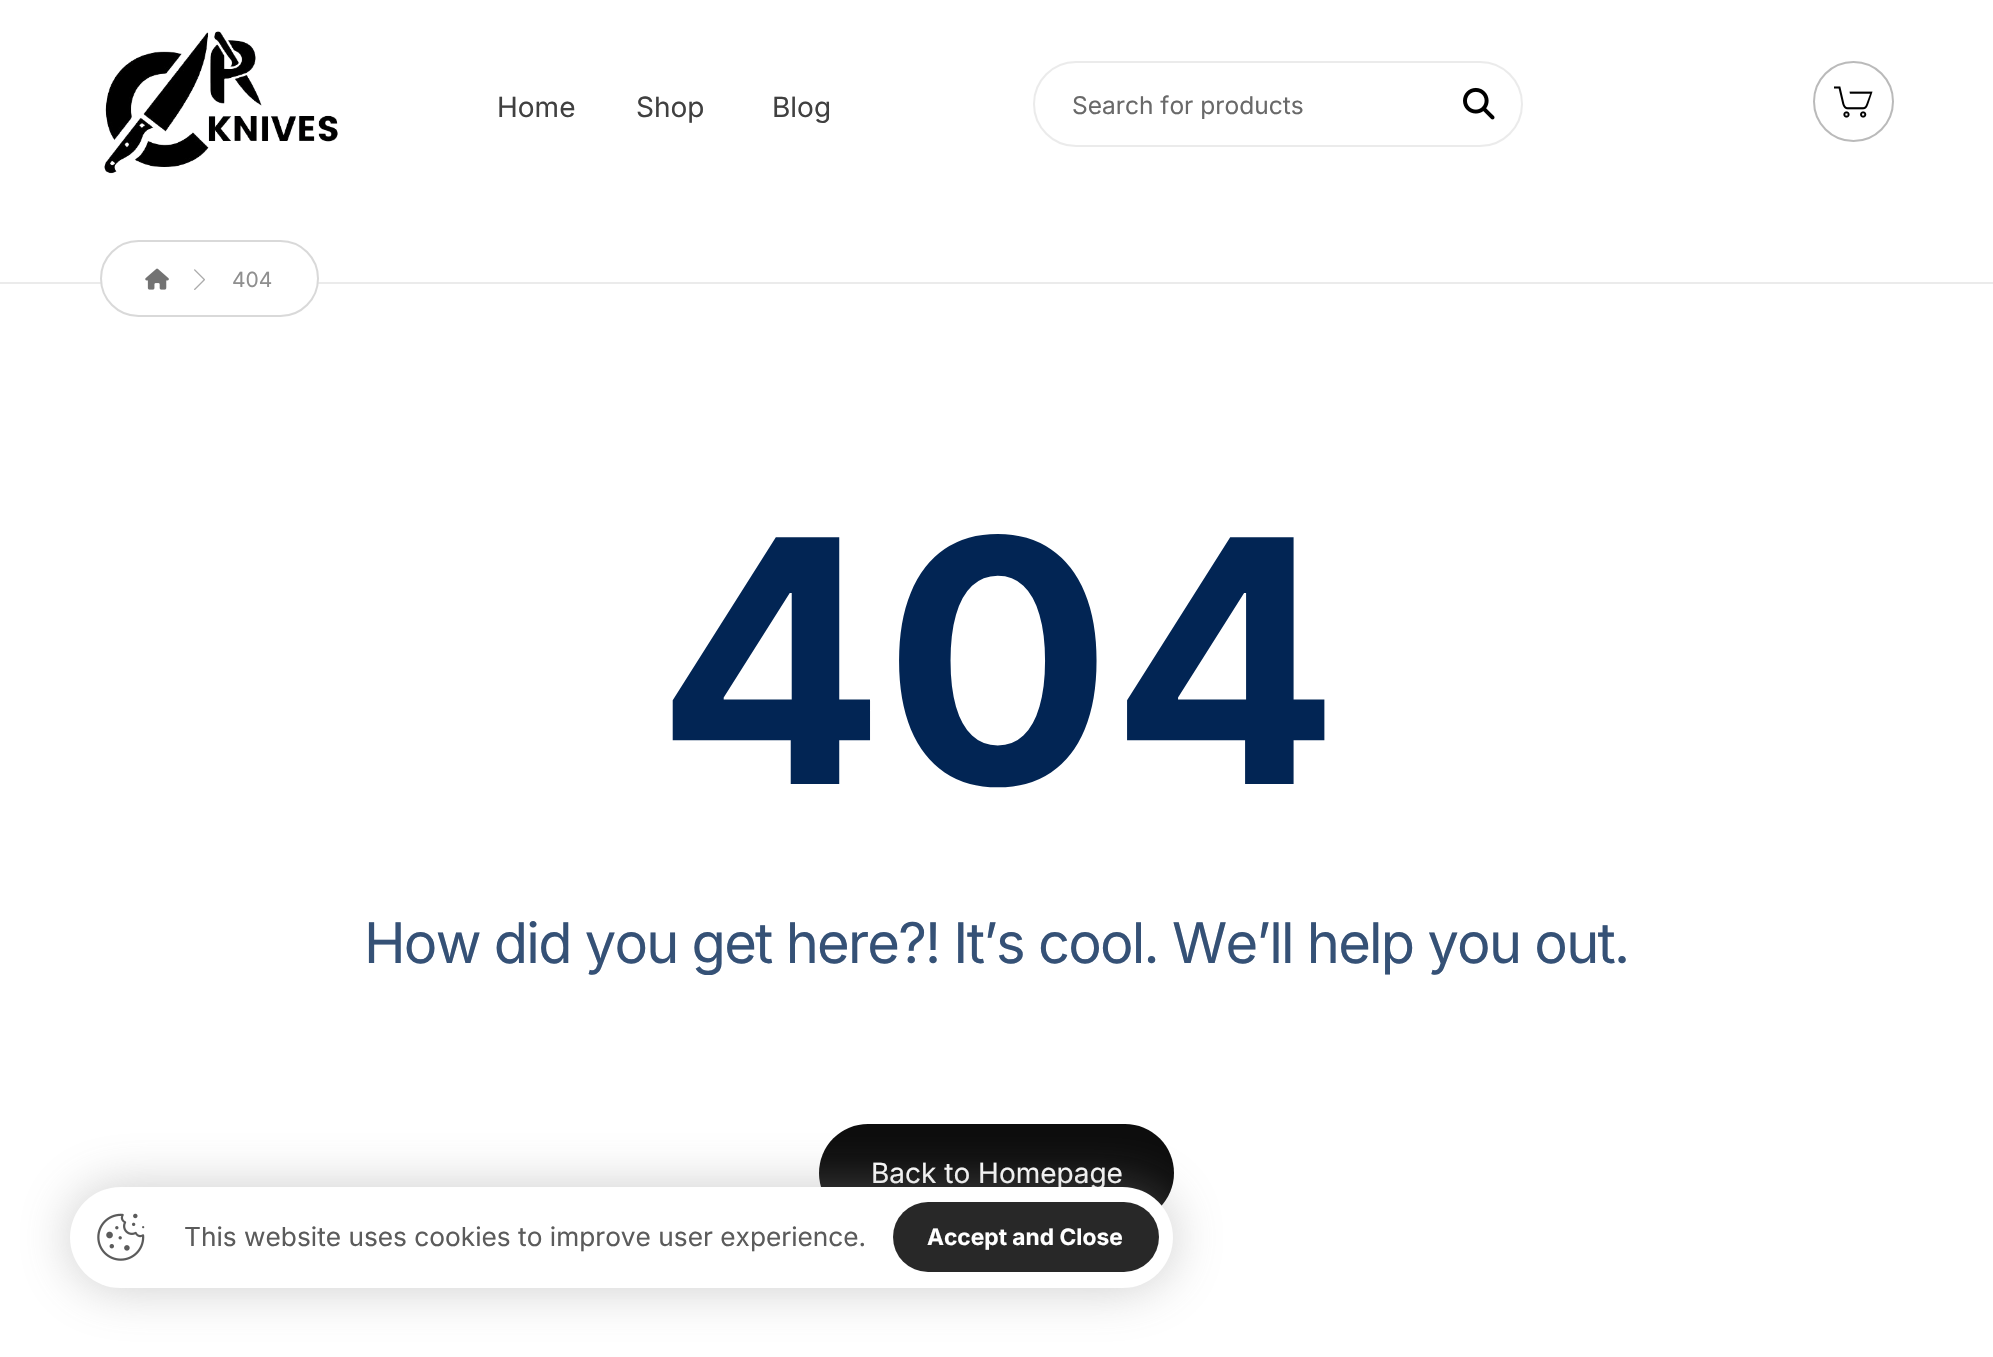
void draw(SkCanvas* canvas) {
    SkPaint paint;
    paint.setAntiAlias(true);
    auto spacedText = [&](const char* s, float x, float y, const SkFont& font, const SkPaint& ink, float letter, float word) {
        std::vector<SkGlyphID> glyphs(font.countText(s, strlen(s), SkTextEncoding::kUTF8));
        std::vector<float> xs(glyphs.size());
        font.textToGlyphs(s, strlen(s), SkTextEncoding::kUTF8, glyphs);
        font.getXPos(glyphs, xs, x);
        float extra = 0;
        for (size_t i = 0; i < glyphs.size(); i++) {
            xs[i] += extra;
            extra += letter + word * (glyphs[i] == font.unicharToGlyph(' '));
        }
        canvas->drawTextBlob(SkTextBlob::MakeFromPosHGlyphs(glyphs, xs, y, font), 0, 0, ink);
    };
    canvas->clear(0xFFFFFFFF);
    canvas->drawImageRect(SkImages::DeferredFromEncodedData(SkData::MakeFromFileName("img1.png")), SkRect::MakeXYWH(104, 31, 234, 143), SkSamplingOptions());
    SkFont font1(fontMgr->matchFamilyStyle("Inter", SkFontStyle::Normal()), 28);
    font1.setSubpixel(true);
    paint.setColor(0xFF404040);
    canvas->drawString("Home", 497, 117, font1, paint);
    canvas->drawString("Shop", 636, 117, font1, paint);
    canvas->drawString("Blog", 772, 117, font1, paint);
    paint.setStyle(SkPaint::kStroke_Style);
    paint.setStrokeWidth(2);
    paint.setColor(0xFFEBEBEB);
    canvas->drawRoundRect(SkRect::MakeXYWH(1034, 62, 488, 84), 42, 42, paint);
    SkFont font2(fontMgr->matchFamilyStyle("Inter", SkFontStyle::Normal()), 24.5f);
    font2.setSubpixel(true);
    paint.setStyle(SkPaint::kFill_Style);
    paint.setColor(0xFF696969);
    canvas->drawString("Search for products", 1072, 114, font2, paint);
    canvas->drawImageRect(SkImages::DeferredFromEncodedData(SkData::MakeFromFileName("img2.png")), SkRect::MakeXYWH(1463, 87, 32, 33), SkSamplingOptions());
    paint.setStyle(SkPaint::kStroke_Style);
    paint.setColor(0xFFBABABA);
    canvas->drawCircle(1853.5f, 101.5f, 39.5f, paint);
    canvas->drawImageRect(SkImages::DeferredFromEncodedData(SkData::MakeFromFileName("img3.png")), SkRect::MakeXYWH(1834, 86, 39, 32), SkSamplingOptions());
    paint.setStyle(SkPaint::kFill_Style);
    paint.setColor(0xFFEBEBEB);
    canvas->drawRect(SkRect::MakeXYWH(0, 282, 1993, 2), paint);
    paint.setColor(0xFFFFFFFF);
    canvas->drawRoundRect(SkRect::MakeXYWH(100, 240, 219, 77), 38.5f, 38.5f, paint);
    paint.setStyle(SkPaint::kStroke_Style);
    paint.setColor(0x26000000);
    canvas->drawRoundRect(SkRect::MakeXYWH(101, 241, 217, 75), 37.5f, 37.5f, paint);
    canvas->drawImageRect(SkImages::DeferredFromEncodedData(SkData::MakeFromFileName("img4.png")), SkRect::MakeXYWH(145, 268, 24, 22), SkSamplingOptions());
    canvas->drawImageRect(SkImages::DeferredFromEncodedData(SkData::MakeFromFileName("img5.png")), SkRect::MakeXYWH(194, 269, 11, 21), SkSamplingOptions());
    SkFont font3(fontMgr->matchFamilyStyle("Inter", SkFontStyle::Normal()), 21);
    font3.setSubpixel(true);
    paint.setStyle(SkPaint::kFill_Style);
    paint.setColor(0xFF8F8F8F);
    canvas->drawString("404", 232, 287, font3, paint);
    SkFont font4(fontMgr->matchFamilyStyle("Inter", SkFontStyle::Bold()), 339);
    font4.setSubpixel(true);
    paint.setColor(0xFF022554);
    spacedText("404", 656, 784, font4, paint, -1.75f, 0);
    SkFont font5(fontMgr->matchFamilyStyle("Inter", SkFontStyle::Normal()), 56);
    font5.setSubpixel(true);
    paint.setColor(0xFF355176);
    spacedText("How did you get here?! It’s cool. We’ll help you out.", 364, 963, font5, paint, -1.75f, 0);
    paint.setColor(0xFF0C0C0C);
    canvas->drawRoundRect(SkRect::MakeXYWH(819, 1124, 355, 98), 49, 49, paint);
    paint.setColor(0xFFFFFFFF);
    canvas->drawString("Back to Homepage", 871, 1183, font1, paint);
    paint.setColor(0x708A8A8A);
    paint.setMaskFilter(SkMaskFilter::MakeBlur(kNormal_SkBlurStyle, 26));
    canvas->drawRoundRect(SkRect::MakeXYWH(70, 1187, 1103, 101), 50.5f, 50.5f, paint);
    paint.setMaskFilter(nullptr);
    paint.setColor(0xFFFFFFFF);
    canvas->drawRoundRect(SkRect::MakeXYWH(70, 1187, 1103, 101), 50.5f, 50.5f, paint);
    canvas->drawImageRect(SkImages::DeferredFromEncodedData(SkData::MakeFromFileName("img6.png")), SkRect::MakeXYWH(97, 1213, 48, 48), SkSamplingOptions());
    SkFont font6(fontMgr->matchFamilyStyle("Inter", SkFontStyle::Normal()), 26.25f);
    font6.setSubpixel(true);
    paint.setColor(0xFF5B5B5B);
    canvas->drawString("This website uses cookies to improve user experience.", 184, 1246, font6, paint);
    paint.setColor(0xFF282828);
    canvas->drawRoundRect(SkRect::MakeXYWH(893, 1202, 266, 70), 35, 35, paint);
    SkFont font7(fontMgr->matchFamilyStyle("Inter", SkFontStyle::Bold()), 22.75f);
    font7.setSubpixel(true);
    paint.setColor(0xFFFFFFFF);
    canvas->drawString("Accept and Close", 927, 1245, font7, paint);
}
